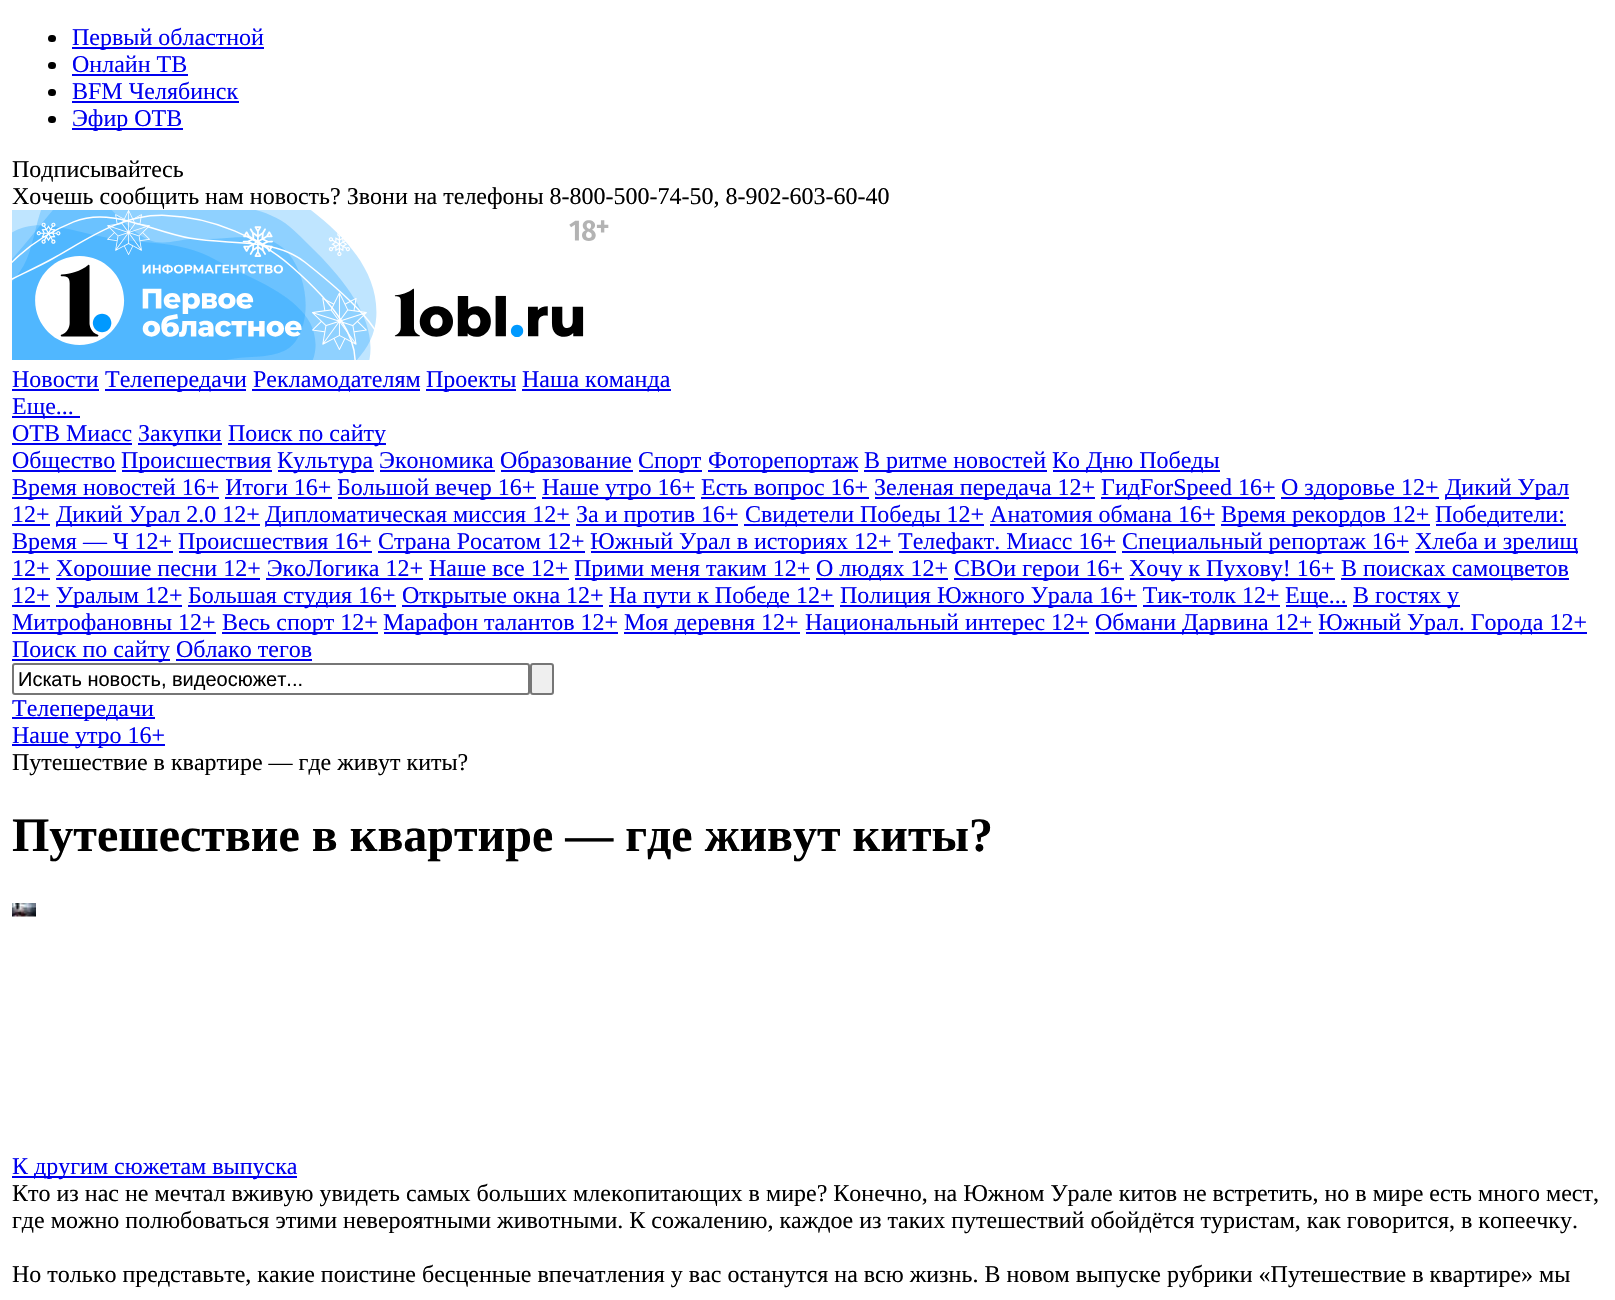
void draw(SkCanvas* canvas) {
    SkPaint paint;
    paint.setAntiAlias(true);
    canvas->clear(0xFFFFFFFF);
    paint.setColor(0xFF000000);
    canvas->drawRoundRect(SkRect::MakeXYWH(48, 35, 8, 7), 3.5f, 3.5f, paint);
    paint.setColor(0xFF0000EE);
    canvas->drawRect(SkRect::MakeXYWH(72, 47, 192, 2), paint);
    SkFont font1(fontMgr->matchFamilyStyle("Liberation Serif", SkFontStyle::Normal()), 24);
    font1.setSubpixel(true);
    canvas->drawString("Первый областной", 72, 45, font1, paint);
    paint.setColor(0xFF000000);
    canvas->drawRoundRect(SkRect::MakeXYWH(48, 62, 8, 7), 3.5f, 3.5f, paint);
    paint.setColor(0xFF0000EE);
    canvas->drawString("Онлайн ТВ", 72, 72, font1, paint);
    canvas->drawRect(SkRect::MakeXYWH(72, 74, 116, 2), paint);
    paint.setColor(0xFF000000);
    canvas->drawRoundRect(SkRect::MakeXYWH(48, 89, 8, 7), 3.5f, 3.5f, paint);
    paint.setColor(0xFF0000EE);
    canvas->drawString("BFM Челябинск", 72, 99, font1, paint);
    canvas->drawRect(SkRect::MakeXYWH(72, 101, 167, 2), paint);
    paint.setColor(0xFF000000);
    canvas->drawRoundRect(SkRect::MakeXYWH(48, 116, 8, 7), 3.5f, 3.5f, paint);
    paint.setColor(0xFF0000EE);
    canvas->drawRect(SkRect::MakeXYWH(72, 128, 111, 2), paint);
    canvas->drawString("Эфир ОТВ", 72, 126, font1, paint);
    paint.setColor(0xFF000000);
    canvas->drawString("Подписывайтесь", 12, 177, font1, paint);
    canvas->drawString("Хочешь сообщить нам новость? Звони на телефоны 8-800-500-74-50, 8-902-603-60-40", 12, 204, font1, paint);
    canvas->drawImageRect(SkImages::DeferredFromEncodedData(SkData::MakeFromFileName("img1.png")), SkRect::MakeXYWH(12, 210, 597, 150), SkSamplingOptions());
    paint.setColor(0xFF0000EE);
    canvas->drawString("Новости", 12, 387, font1, paint);
    canvas->drawRect(SkRect::MakeXYWH(12, 389, 87, 2), paint);
    canvas->drawRect(SkRect::MakeXYWH(105, 389, 141, 2), paint);
    canvas->drawString("Телепередачи", 105, 387, font1, paint);
    canvas->drawRect(SkRect::MakeXYWH(252, 389, 168, 2), paint);
    canvas->drawString("Рекламодателям", 253, 387, font1, paint);
    canvas->drawRect(SkRect::MakeXYWH(426, 389, 90, 2), paint);
    canvas->drawString("Проекты", 426, 387, font1, paint);
    canvas->drawRect(SkRect::MakeXYWH(522, 389, 149, 2), paint);
    canvas->drawString("Наша команда", 522, 387, font1, paint);
    canvas->drawRect(SkRect::MakeXYWH(12, 416, 68, 2), paint);
    canvas->drawString("Еще...", 12, 414, font1, paint);
    canvas->drawString("ОТВ Миасс", 12, 441, font1, paint);
    canvas->drawRect(SkRect::MakeXYWH(12, 443, 120, 2), paint);
    canvas->drawRect(SkRect::MakeXYWH(138, 443, 84, 2), paint);
    canvas->drawString("Закупки", 138, 441, font1, paint);
    canvas->drawRect(SkRect::MakeXYWH(228, 443, 158, 2), paint);
    canvas->drawString("Поиск по сайту", 228, 441, font1, paint);
    canvas->drawRect(SkRect::MakeXYWH(12, 470, 104, 2), paint);
    canvas->drawString("Общество", 12, 468, font1, paint);
    canvas->drawRect(SkRect::MakeXYWH(122, 470, 150, 2), paint);
    canvas->drawString("Происшествия", 121, 468, font1, paint);
    canvas->drawRect(SkRect::MakeXYWH(278, 470, 96, 2), paint);
    canvas->drawString("Культура Экономика", 277, 468, font1, paint);
    canvas->drawRect(SkRect::MakeXYWH(501, 470, 132, 2), paint);
    canvas->drawString("Образование", 500, 468, font1, paint);
    canvas->drawRect(SkRect::MakeXYWH(639, 470, 63, 2), paint);
    canvas->drawString("Спорт", 638, 468, font1, paint);
    canvas->drawRect(SkRect::MakeXYWH(708, 470, 150, 2), paint);
    canvas->drawString("Фоторепортаж", 708, 468, font1, paint);
    canvas->drawRect(SkRect::MakeXYWH(864, 470, 183, 2), paint);
    canvas->drawString("В ритме новостей", 864, 468, font1, paint);
    canvas->drawRect(SkRect::MakeXYWH(1053, 470, 167, 2), paint);
    canvas->drawString("Ко Дню Победы", 1052, 468, font1, paint);
    canvas->drawRect(SkRect::MakeXYWH(380, 470, 115, 2), paint);
    canvas->drawRect(SkRect::MakeXYWH(12, 497, 207, 2), paint);
    canvas->drawString("Время новостей 16+ Итоги 16+", 12, 495, font1, paint);
    canvas->drawRect(SkRect::MakeXYWH(338, 497, 198, 2), paint);
    canvas->drawString("Большой вечер 16+", 337, 495, font1, paint);
    canvas->drawRect(SkRect::MakeXYWH(542, 497, 153, 2), paint);
    canvas->drawString("Наше утро 16+", 542, 495, font1, paint);
    canvas->drawRect(SkRect::MakeXYWH(701, 497, 168, 2), paint);
    canvas->drawString("Есть вопрос 16+", 701, 495, font1, paint);
    canvas->drawRect(SkRect::MakeXYWH(875, 497, 220, 2), paint);
    canvas->drawString("Зеленая передача 12+", 874, 495, font1, paint);
    canvas->drawRect(SkRect::MakeXYWH(1101, 497, 174, 2), paint);
    canvas->drawString("ГидForSpeed 16+", 1101, 495, font1, paint);
    canvas->drawRect(SkRect::MakeXYWH(1281, 497, 158, 2), paint);
    canvas->drawString("О здоровье 12+", 1281, 495, font1, paint);
    canvas->drawRect(SkRect::MakeXYWH(1445, 497, 124, 2), paint);
    canvas->drawString("Дикий Урал", 1445, 495, font1, paint);
    canvas->drawRect(SkRect::MakeXYWH(225, 497, 107, 2), paint);
    canvas->drawString("12+", 12, 522, font1, paint);
    canvas->drawRect(SkRect::MakeXYWH(12, 524, 38, 2), paint);
    canvas->drawRect(SkRect::MakeXYWH(56, 524, 204, 2), paint);
    canvas->drawString("Дикий Урал 2.0 12+", 56, 522, font1, paint);
    canvas->drawRect(SkRect::MakeXYWH(266, 524, 304, 2), paint);
    canvas->drawString("Дипломатическая миссия 12+", 265, 522, font1, paint);
    canvas->drawRect(SkRect::MakeXYWH(576, 524, 162, 2), paint);
    canvas->drawString("За и против 16+", 576, 522, font1, paint);
    canvas->drawRect(SkRect::MakeXYWH(744, 524, 240, 2), paint);
    canvas->drawString("Свидетели Победы 12+ Анатомия обмана 16+", 745, 522, font1, paint);
    canvas->drawRect(SkRect::MakeXYWH(1221, 524, 209, 2), paint);
    canvas->drawString("Время рекордов 12+", 1221, 522, font1, paint);
    canvas->drawRect(SkRect::MakeXYWH(1436, 524, 130, 2), paint);
    canvas->drawString("Победители:", 1435, 522, font1, paint);
    canvas->drawRect(SkRect::MakeXYWH(990, 524, 225, 2), paint);
    canvas->drawRect(SkRect::MakeXYWH(12, 551, 161, 2), paint);
    canvas->drawString("Время — Ч 12+", 12, 549, font1, paint);
    canvas->drawRect(SkRect::MakeXYWH(179, 551, 193, 2), paint);
    canvas->drawString("Происшествия 16+", 178, 549, font1, paint);
    canvas->drawRect(SkRect::MakeXYWH(378, 551, 207, 2), paint);
    canvas->drawString("Страна Росатом 12+", 378, 549, font1, paint);
    canvas->drawRect(SkRect::MakeXYWH(591, 551, 302, 2), paint);
    canvas->drawString("Южный Урал в историях 12+", 590, 549, font1, paint);
    canvas->drawRect(SkRect::MakeXYWH(899, 551, 217, 2), paint);
    canvas->drawString("Телефакт. Миасс 16+", 898, 549, font1, paint);
    canvas->drawRect(SkRect::MakeXYWH(1122, 551, 287, 2), paint);
    canvas->drawString("Специальный репортаж 16+", 1122, 549, font1, paint);
    canvas->drawRect(SkRect::MakeXYWH(1415, 551, 163, 2), paint);
    canvas->drawString("Хлеба и зрелищ", 1415, 549, font1, paint);
    canvas->drawString("12+", 12, 576, font1, paint);
    canvas->drawRect(SkRect::MakeXYWH(12, 578, 38, 2), paint);
    canvas->drawRect(SkRect::MakeXYWH(56, 578, 204, 2), paint);
    canvas->drawString("Хорошие песни 12+ ЭкоЛогика 12+ Наше все 12+", 56, 576, font1, paint);
    canvas->drawRect(SkRect::MakeXYWH(575, 578, 235, 2), paint);
    canvas->drawString("Прими меня таким 12+", 574, 576, font1, paint);
    canvas->drawRect(SkRect::MakeXYWH(816, 578, 132, 2), paint);
    canvas->drawString("О людях 12+", 816, 576, font1, paint);
    canvas->drawRect(SkRect::MakeXYWH(954, 578, 170, 2), paint);
    canvas->drawString("СВОи герои 16+", 954, 576, font1, paint);
    canvas->drawRect(SkRect::MakeXYWH(1130, 578, 205, 2), paint);
    canvas->drawString("Хочу к Пухову! 16+", 1129, 576, font1, paint);
    canvas->drawRect(SkRect::MakeXYWH(1341, 578, 228, 2), paint);
    canvas->drawString("В поисках самоцветов", 1341, 576, font1, paint);
    canvas->drawRect(SkRect::MakeXYWH(266, 578, 157, 2), paint);
    canvas->drawRect(SkRect::MakeXYWH(429, 578, 140, 2), paint);
    canvas->drawString("12+", 12, 603, font1, paint);
    canvas->drawRect(SkRect::MakeXYWH(12, 605, 38, 2), paint);
    canvas->drawRect(SkRect::MakeXYWH(56, 605, 126, 2), paint);
    canvas->drawString("Уралым 12+", 56, 603, font1, paint);
    canvas->drawRect(SkRect::MakeXYWH(188, 605, 208, 2), paint);
    canvas->drawString("Большая студия 16+", 188, 603, font1, paint);
    canvas->drawRect(SkRect::MakeXYWH(402, 605, 201, 2), paint);
    canvas->drawString("Открытые окна 12+", 402, 603, font1, paint);
    canvas->drawRect(SkRect::MakeXYWH(609, 605, 225, 2), paint);
    canvas->drawString("На пути к Победе 12+", 609, 603, font1, paint);
    canvas->drawRect(SkRect::MakeXYWH(840, 605, 297, 2), paint);
    canvas->drawString("Полиция Южного Урала 16+ Тик-толк 12+", 840, 603, font1, paint);
    canvas->drawRect(SkRect::MakeXYWH(1286, 605, 61, 2), paint);
    canvas->drawString("Еще...", 1285, 603, font1, paint);
    canvas->drawRect(SkRect::MakeXYWH(1353, 605, 107, 2), paint);
    canvas->drawString("В гостях у", 1353, 603, font1, paint);
    canvas->drawRect(SkRect::MakeXYWH(1143, 605, 137, 2), paint);
    canvas->drawRect(SkRect::MakeXYWH(12, 632, 204, 2), paint);
    canvas->drawString("Митрофановны 12+", 12, 630, font1, paint);
    canvas->drawRect(SkRect::MakeXYWH(222, 632, 156, 2), paint);
    canvas->drawString("Весь спорт 12+", 222, 630, font1, paint);
    canvas->drawRect(SkRect::MakeXYWH(384, 632, 234, 2), paint);
    canvas->drawString("Марафон талантов 12+", 383, 630, font1, paint);
    canvas->drawRect(SkRect::MakeXYWH(624, 632, 176, 2), paint);
    canvas->drawString("Моя деревня 12+", 624, 630, font1, paint);
    canvas->drawRect(SkRect::MakeXYWH(806, 632, 283, 2), paint);
    canvas->drawString("Национальный интерес 12+", 805, 630, font1, paint);
    canvas->drawRect(SkRect::MakeXYWH(1095, 632, 218, 2), paint);
    canvas->drawString("Обмани Дарвина 12+", 1095, 630, font1, paint);
    canvas->drawRect(SkRect::MakeXYWH(1319, 632, 268, 2), paint);
    canvas->drawString("Южный Урал. Города 12+", 1318, 630, font1, paint);
    canvas->drawRect(SkRect::MakeXYWH(12, 659, 158, 2), paint);
    canvas->drawString("Поиск по сайту Облако тегов", 12, 657, font1, paint);
    canvas->drawRect(SkRect::MakeXYWH(176, 659, 136, 2), paint);
    paint.setStyle(SkPaint::kStroke_Style);
    paint.setStrokeWidth(2);
    paint.setColor(0xFF767676);
    canvas->drawRoundRect(SkRect::MakeXYWH(13, 664, 516, 30), 2, 2, paint);
    SkFont font2(fontMgr->matchFamilyStyle("Liberation Sans", SkFontStyle::Normal()), 20);
    font2.setSubpixel(true);
    paint.setStyle(SkPaint::kFill_Style);
    paint.setColor(0xFF000000);
    canvas->drawString("Искать новость, видеосюжет...", 18, 686, font2, paint);
    paint.setColor(0xFFEFEFEF);
    canvas->drawRoundRect(SkRect::MakeXYWH(531, 664, 22, 30), 2, 2, paint);
    paint.setStyle(SkPaint::kStroke_Style);
    paint.setColor(0xFF767676);
    canvas->drawRoundRect(SkRect::MakeXYWH(531, 664, 22, 30), 2, 2, paint);
    paint.setStyle(SkPaint::kFill_Style);
    paint.setColor(0xFF0000EE);
    canvas->drawRect(SkRect::MakeXYWH(12, 717, 143, 2), paint);
    canvas->drawString("Телепередачи", 12, 716, font1, paint);
    canvas->drawRect(SkRect::MakeXYWH(12, 744, 153, 2), paint);
    canvas->drawString("Наше утро 16+", 12, 743, font1, paint);
    paint.setColor(0xFF000000);
    canvas->drawString("Путешествие в квартире — где живут киты?", 12, 770, font1, paint);
    SkFont font3(fontMgr->matchFamilyStyle("Liberation Serif", SkFontStyle::Bold()), 48);
    font3.setSubpixel(true);
    canvas->drawString("Путешествие в квартире — где живут киты?", 12, 851, font3, paint);
    canvas->drawImageRect(SkImages::DeferredFromEncodedData(SkData::MakeFromFileName("img2.png")), SkRect::MakeXYWH(12, 903, 24, 14), SkSamplingOptions());
    paint.setColor(0xFF0000EE);
    canvas->drawRect(SkRect::MakeXYWH(12, 1176, 285, 2), paint);
    canvas->drawString("К другим сюжетам выпуска", 12, 1174, font1, paint);
    paint.setColor(0xFF000000);
    canvas->drawString("Кто из нас не мечтал вживую увидеть самых больших млекопитающих в мире? Конечно, на Южном Урале китов не встретить, но в мире есть много мест,", 12, 1201, font1, paint);
    canvas->drawString("где можно полюбоваться этими невероятными животными. К сожалению, каждое из таких путешествий обойдётся туристам, как говорится, в копеечку.", 12, 1228, font1, paint);
    canvas->drawString("Но только представьте, какие поистине бесценные впечатления у вас останутся на всю жизнь. В новом выпуске рубрики «Путешествие в квартире» мы", 12, 1282, font1, paint);
}
